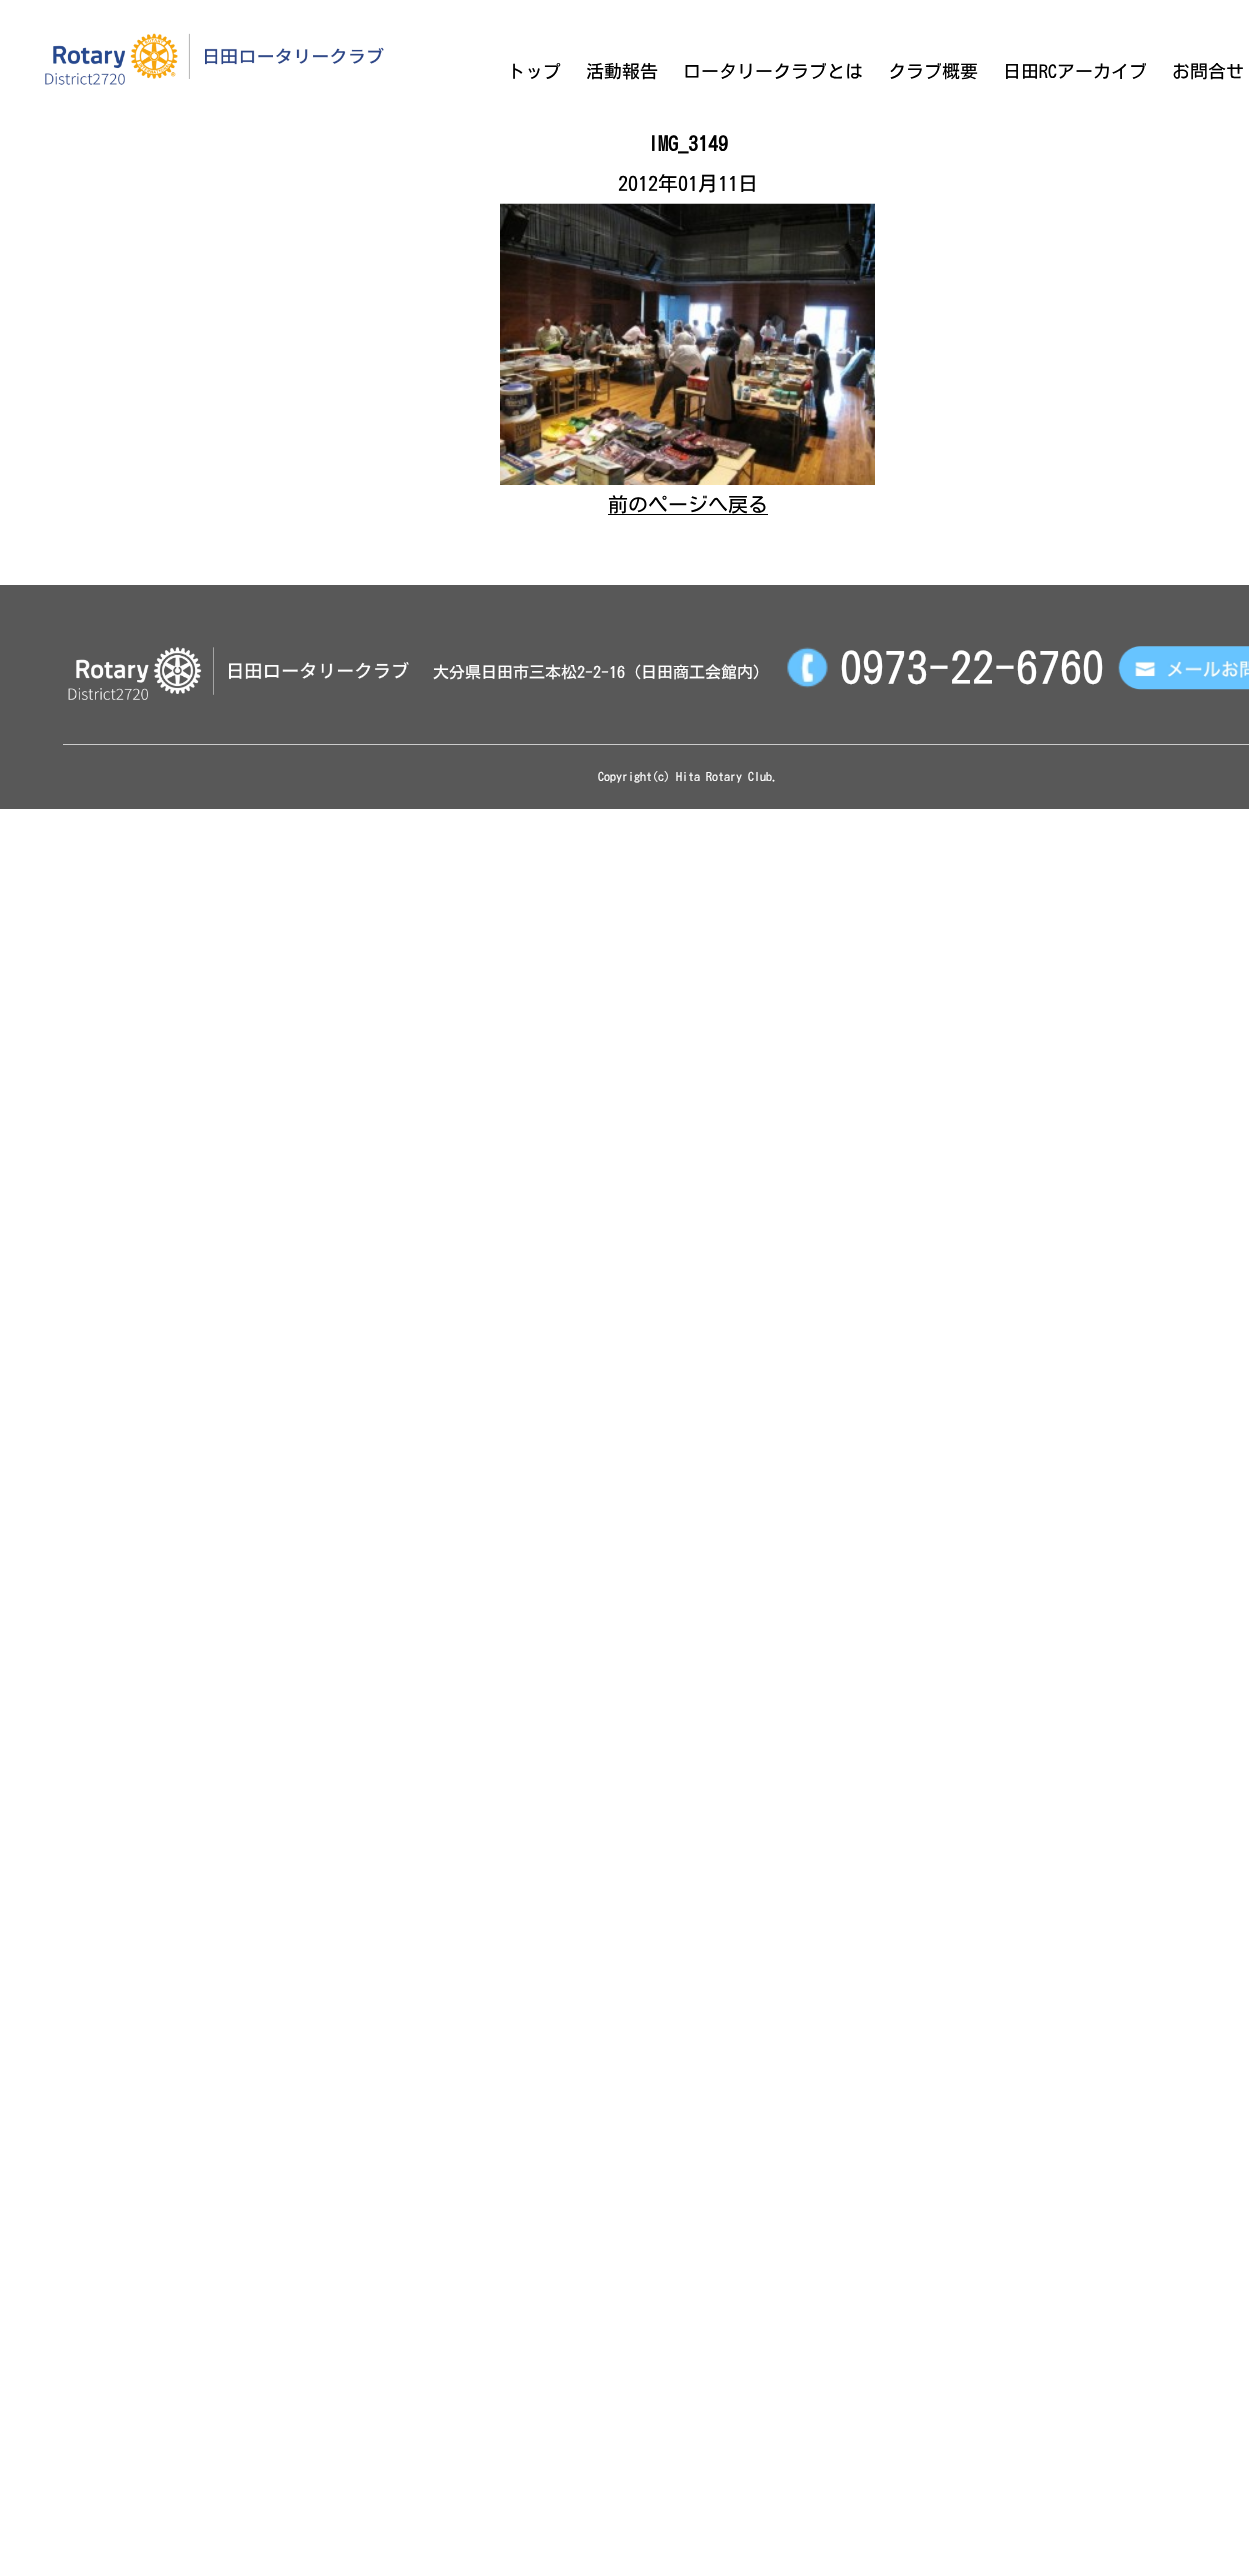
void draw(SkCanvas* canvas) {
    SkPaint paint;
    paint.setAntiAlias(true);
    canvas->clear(0xFFFFFFFF);
    canvas->drawImageRect(SkImages::DeferredFromEncodedData(SkData::MakeFromFileName("img1.png")), SkRect::MakeXYWH(45, 33, 339, 52), SkSamplingOptions());
    SkFont font1(fontMgr->matchFamilyStyle("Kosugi", SkFontStyle::Normal()), 18);
    font1.setSubpixel(true);
    paint.setColor(0xFF000000);
    canvas->drawString("トップ", 507, 78, font1, paint);
    canvas->drawString("活動報告", 586, 78, font1, paint);
    canvas->drawString("ロータリークラブとは", 683, 78, font1, paint);
    canvas->drawString("クラブ概要", 888, 78, font1, paint);
    canvas->drawString("日田RCアーカイブ", 1003, 78, font1, paint);
    canvas->drawString("お問合せ", 1172, 78, font1, paint);
    SkFont font2(fontMgr->matchFamilyStyle("Kosugi", SkFontStyle::Bold()), 20);
    font2.setSubpixel(true);
    canvas->drawString("IMG_3149", 648, 151, font2, paint);
    SkFont font3(fontMgr->matchFamilyStyle("Kosugi", SkFontStyle::Normal()), 20);
    font3.setSubpixel(true);
    canvas->drawString("2012年01月11日", 618, 191, font3, paint);
    canvas->drawImageRect(SkImages::DeferredFromEncodedData(SkData::MakeFromFileName("img2.png")), SkRect::MakeXYWH(500, 203, 375, 282), SkSamplingOptions());
    canvas->drawString("前のページへ戻る", 608, 512, font3, paint);
    canvas->drawRect(SkRect::MakeXYWH(608, 514, 160, 1), paint);
    paint.setColor(0xFF585858);
    canvas->drawRect(SkRect::MakeXYWH(0, 585, 1249, 224), paint);
    canvas->drawImageRect(SkImages::DeferredFromEncodedData(SkData::MakeFromFileName("img3.png")), SkRect::MakeXYWH(68, 647, 341, 53), SkSamplingOptions());
    SkFont font4(fontMgr->matchFamilyStyle("Kosugi", SkFontStyle::Normal()), 16);
    font4.setSubpixel(true);
    paint.setColor(0xFFFFFFFF);
    canvas->drawString("大分県日田市三本松2-2-16（日田商工会館内）", 433, 678, font4, paint);
    canvas->drawImageRect(SkImages::DeferredFromEncodedData(SkData::MakeFromFileName("img4.png")), SkRect::MakeXYWH(787, 647, 41, 41), SkSamplingOptions());
    SkFont font5(fontMgr->matchFamilyStyle("Kosugi", SkFontStyle::Normal()), 44);
    font5.setSubpixel(true);
    canvas->drawString("0973-22-6760", 840, 684, font5, paint);
    canvas->drawImageRect(SkImages::DeferredFromEncodedData(SkData::MakeFromFileName("img5.png")), SkRect::MakeXYWH(1118, 646, 131, 44), SkSamplingOptions());
    paint.setColor(0xFFCCCCCC);
    canvas->drawRect(SkRect::MakeXYWH(63, 744, 1186, 1), paint);
    SkFont font6(fontMgr->matchFamilyStyle("Kosugi", SkFontStyle::Normal()), 12);
    font6.setSubpixel(true);
    paint.setColor(0xFFFFFFFF);
    canvas->drawString("Copyright(c) Hita Rotary Club.", 598, 781, font6, paint);
}
